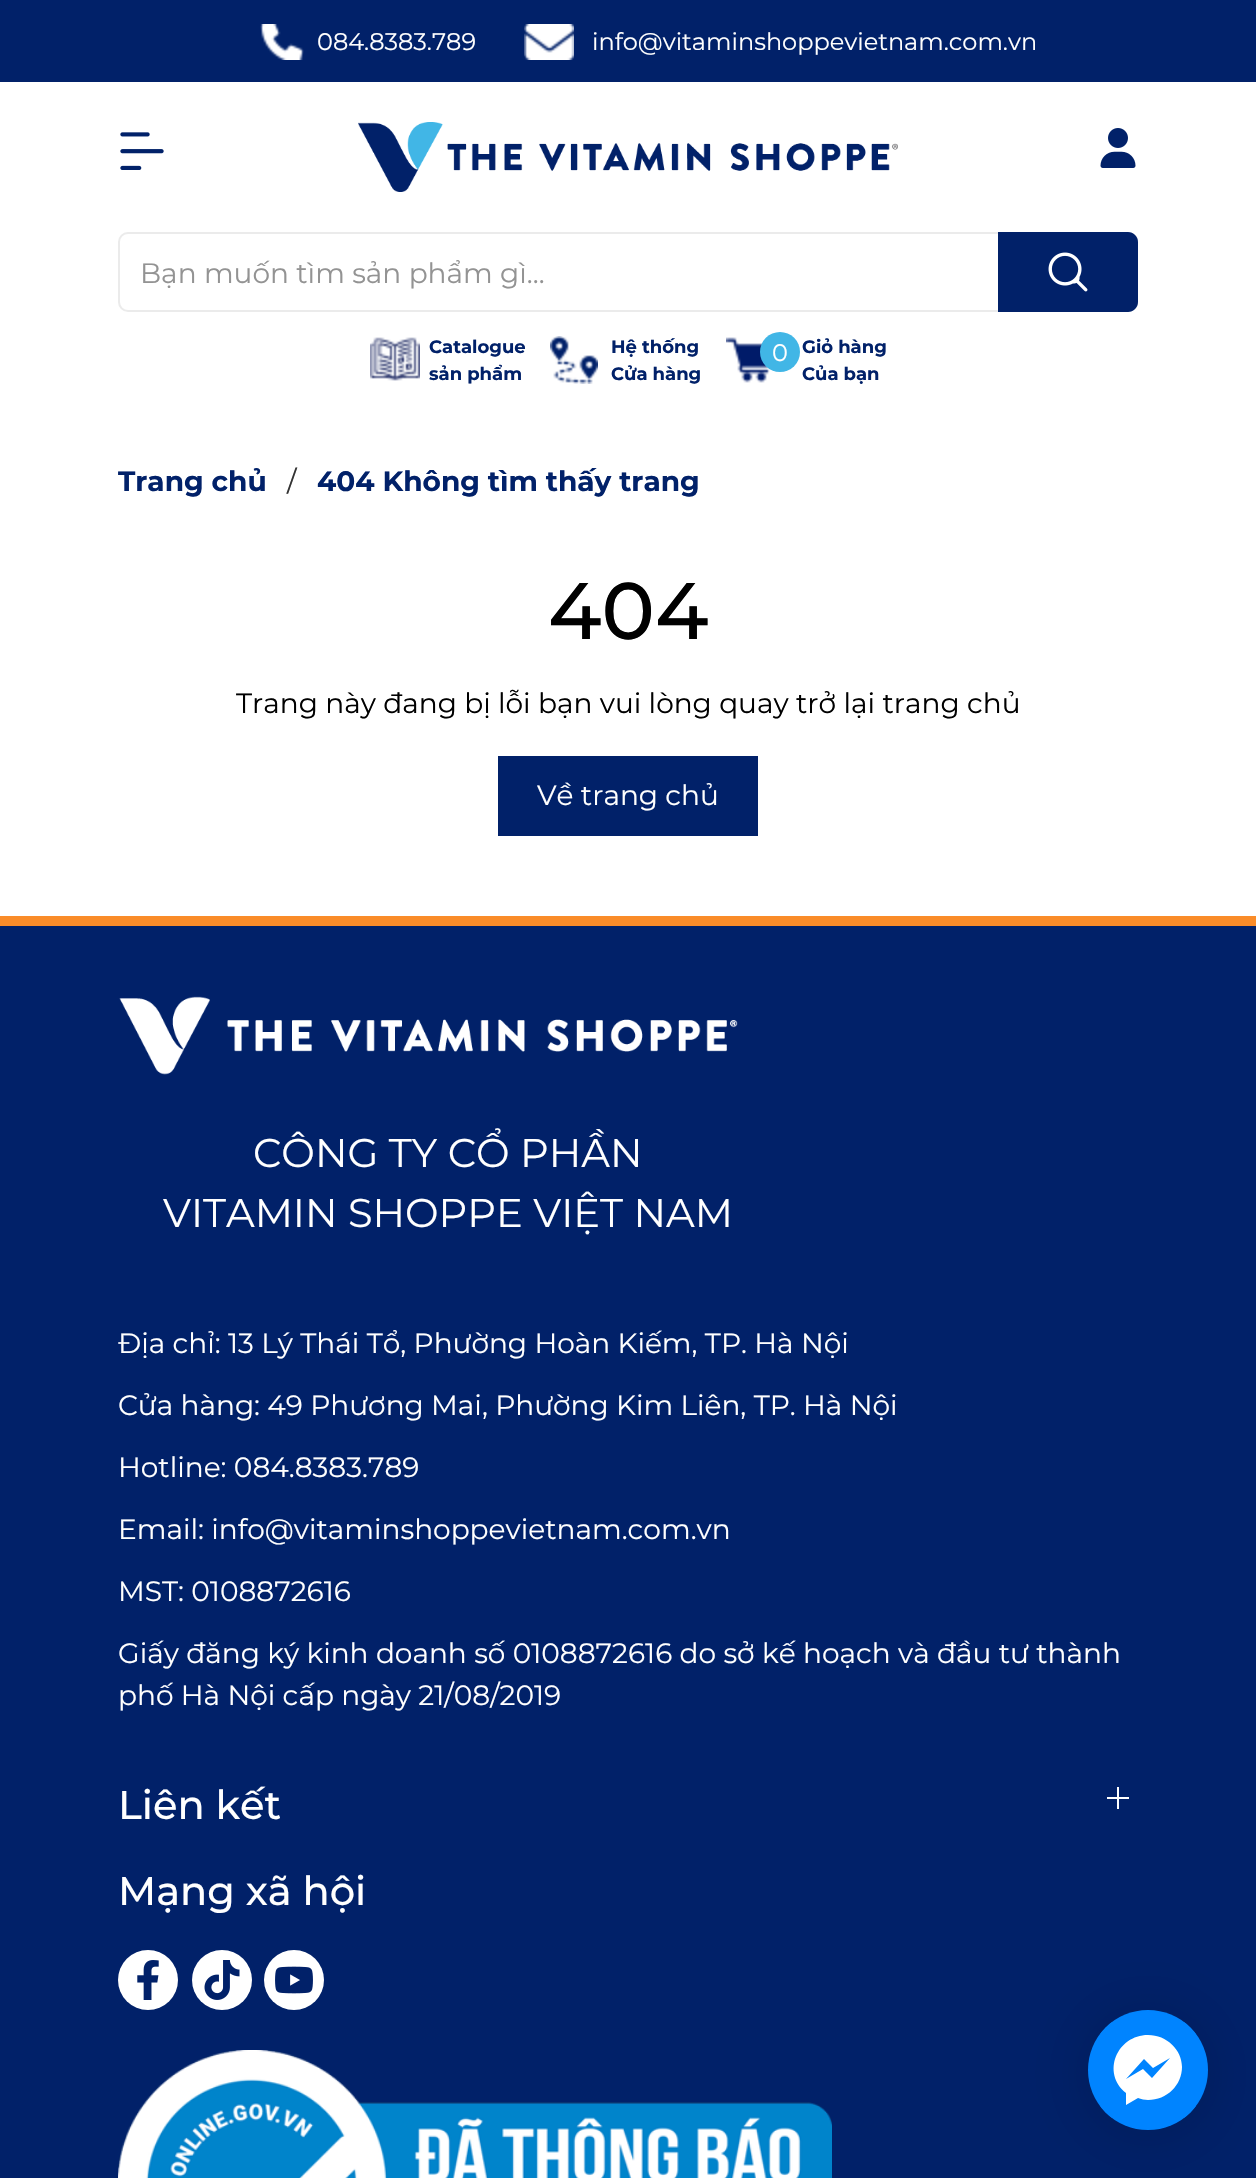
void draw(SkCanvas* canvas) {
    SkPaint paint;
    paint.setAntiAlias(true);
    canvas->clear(0xFFFFFFFF);
    paint.setColor(0xFF012169);
    canvas->drawRect(SkRect::MakeXYWH(0, 0, 1256, 82), paint);
    canvas->drawImageRect(SkImages::DeferredFromEncodedData(SkData::MakeFromFileName("img1.png")), SkRect::MakeXYWH(260, 24, 44, 36), SkSamplingOptions());
    SkFont font1(fontMgr->matchFamilyStyle("Montserrat", SkFontStyle::Normal()), 24);
    font1.setSubpixel(true);
    paint.setColor(0xFFFFFFFF);
    canvas->drawString("084.8383.789", 317, 50, font1, paint);
    canvas->drawImageRect(SkImages::DeferredFromEncodedData(SkData::MakeFromFileName("img2.png")), SkRect::MakeXYWH(524, 24, 50, 36), SkSamplingOptions());
    canvas->drawString("info@vitaminshoppevietnam.com.vn", 592, 50, font1, paint);
    canvas->drawImageRect(SkImages::DeferredFromEncodedData(SkData::MakeFromFileName("img3.png")), SkRect::MakeXYWH(120, 132, 44, 38), SkSamplingOptions());
    canvas->drawImageRect(SkImages::DeferredFromEncodedData(SkData::MakeFromFileName("img4.png")), SkRect::MakeXYWH(358, 122, 540, 70), SkSamplingOptions());
    canvas->drawImageRect(SkImages::DeferredFromEncodedData(SkData::MakeFromFileName("img5.png")), SkRect::MakeXYWH(1100, 128, 36, 40), SkSamplingOptions());
    paint.setStyle(SkPaint::kStroke_Style);
    paint.setStrokeWidth(2);
    paint.setColor(0xFFEBEBEB);
    canvas->drawRoundRect(SkRect::MakeXYWH(119, 233, 1018, 78), 9, 9, paint);
    SkFont font2(fontMgr->matchFamilyStyle("Montserrat", SkFontStyle::Normal()), 28);
    font2.setSubpixel(true);
    paint.setStyle(SkPaint::kFill_Style);
    paint.setColor(0xFF939393);
    canvas->drawString("Bạn muốn tìm sản phẩm gì...", 140, 283, font2, paint);
    paint.setColor(0xFF012169);
    canvas->drawPath(SkPathBuilder().moveTo(998, 232).lineTo(1128, 232).cubicTo(1133.5f, 232, 1138, 236.5f, 1138, 242).lineTo(1138, 302).cubicTo(1138, 307.5f, 1133.5f, 312, 1128, 312).lineTo(998, 312).close().detach(), paint);
    canvas->drawImageRect(SkImages::DeferredFromEncodedData(SkData::MakeFromFileName("img6.png")), SkRect::MakeXYWH(1048, 252, 40, 40), SkSamplingOptions());
    canvas->drawImageRect(SkImages::DeferredFromEncodedData(SkData::MakeFromFileName("img7.png")), SkRect::MakeXYWH(370, 337, 50, 44), SkSamplingOptions());
    SkFont font3(fontMgr->matchFamilyStyle("Montserrat", SkFontStyle::Bold()), 18);
    font3.setSubpixel(true);
    canvas->drawString("Catalogue", 429, 353, font3, paint);
    canvas->drawString("sản phẩm", 429, 380, font3, paint);
    canvas->drawImageRect(SkImages::DeferredFromEncodedData(SkData::MakeFromFileName("img8.png")), SkRect::MakeXYWH(550, 336, 48, 48), SkSamplingOptions());
    canvas->drawString("Hệ thống", 611, 353, font3, paint);
    canvas->drawString("Cửa hàng", 611, 380, font3, paint);
    canvas->drawImageRect(SkImages::DeferredFromEncodedData(SkData::MakeFromFileName("img9.png")), SkRect::MakeXYWH(726, 337, 44, 46), SkSamplingOptions());
    paint.setColor(0xFF41B6E6);
    canvas->drawCircle(780, 352, 20, paint);
    paint.setColor(0xFFFFFFFF);
    canvas->drawString("0", 772, 361, font1, paint);
    paint.setColor(0xFF012169);
    canvas->drawString("Giỏ hàng", 802, 353, font3, paint);
    canvas->drawString("Của bạn", 802, 380, font3, paint);
    SkFont font4(fontMgr->matchFamilyStyle("Montserrat", SkFontStyle::Bold()), 28);
    font4.setSubpixel(true);
    canvas->drawString("Trang chủ", 118, 491, font4, paint);
    paint.setColor(0xFF333333);
    canvas->drawString("/", 287, 491, font2, paint);
    paint.setColor(0xFF012169);
    canvas->drawString("404 Không tìm thấy trang", 317, 491, font4, paint);
    SkFont font5(fontMgr->matchFamilyStyle("Montserrat", SkFontStyle(500, SkFontStyle::kNormal_Width, SkFontStyle::kUpright_Slant)), 80);
    font5.setSubpixel(true);
    paint.setColor(0xFF000000);
    canvas->drawString("404", 548, 639, font5, paint);
    canvas->drawString("Trang này đang bị lỗi bạn vui lòng quay trở lại trang chủ", 236, 713, font2, paint);
    paint.setColor(0xFF012169);
    canvas->drawRect(SkRect::MakeXYWH(498, 756, 260, 80), paint);
    paint.setColor(0xFFFFFFFF);
    canvas->drawString("Về trang chủ", 537, 805, font2, paint);
    paint.setColor(0xFF012169);
    canvas->drawRect(SkRect::MakeXYWH(0, 926, 1256, 1252), paint);
    paint.setColor(0xFFFA8C29);
    canvas->drawRect(SkRect::MakeXYWH(0, 916, 1256, 10), paint);
    canvas->drawImageRect(SkImages::DeferredFromEncodedData(SkData::MakeFromFileName("img10.png")), SkRect::MakeXYWH(119, 996, 619, 79), SkSamplingOptions());
    SkFont font6(fontMgr->matchFamilyStyle("Montserrat", SkFontStyle::Normal()), 40);
    font6.setSubpixel(true);
    paint.setColor(0xFFFFFFFF);
    canvas->drawString("CÔNG TY CỔ PHẦN", 253, 1167, font6, paint);
    canvas->drawString("VITAMIN SHOPPE VIỆT NAM", 163, 1227, font6, paint);
    canvas->drawString("Địa chỉ: 13 Lý Thái Tổ, Phường Hoàn Kiếm, TP. Hà Nội", 118, 1353, font2, paint);
    canvas->drawString("Cửa hàng: 49 Phương Mai, Phường Kim Liên, TP. Hà Nội", 118, 1415, font2, paint);
    canvas->drawString("Hotline: 084.8383.789", 118, 1477, font2, paint);
    canvas->drawString("Email: info@vitaminshoppevietnam.com.vn", 118, 1539, font2, paint);
    canvas->drawString("MST: 0108872616", 118, 1601, font2, paint);
    canvas->drawString("Giấy đăng ký kinh doanh số 0108872616 do sở kế hoạch và đầu tư thành", 118, 1663, font2, paint);
    canvas->drawString("phố Hà Nội cấp ngày 21/08/2019", 118, 1705, font2, paint);
    SkFont font7(fontMgr->matchFamilyStyle("Montserrat", SkFontStyle(500, SkFontStyle::kNormal_Width, SkFontStyle::kUpright_Slant)), 40);
    font7.setSubpixel(true);
    canvas->drawString("Liên kết", 118, 1819, font7, paint);
    canvas->drawRect(SkRect::MakeXYWH(1117, 1787, 2, 22), paint);
    canvas->drawRect(SkRect::MakeXYWH(1107, 1797, 22, 2), paint);
    canvas->drawString("Mạng xã hội", 118, 1905, font7, paint);
    canvas->drawCircle(148, 1980, 30, paint);
    canvas->drawImageRect(SkImages::DeferredFromEncodedData(SkData::MakeFromFileName("img11.png")), SkRect::MakeXYWH(137, 1960, 22, 40), SkSamplingOptions());
    canvas->drawCircle(222, 1980, 30, paint);
    canvas->drawImageRect(SkImages::DeferredFromEncodedData(SkData::MakeFromFileName("img12.png")), SkRect::MakeXYWH(204, 1960, 36, 40), SkSamplingOptions());
    canvas->drawCircle(294, 1980, 30, paint);
    canvas->drawImageRect(SkImages::DeferredFromEncodedData(SkData::MakeFromFileName("img13.png")), SkRect::MakeXYWH(275, 1966, 38, 28), SkSamplingOptions());
    canvas->drawImageRect(SkImages::DeferredFromEncodedData(SkData::MakeFromFileName("img14.png")), SkRect::MakeXYWH(118, 2050, 714, 128), SkSamplingOptions());
    paint.setColor(0x29000000);
    paint.setMaskFilter(SkMaskFilter::MakeBlur(kNormal_SkBlurStyle, 32));
    canvas->drawRoundRect(SkRect::MakeXYWH(1088, 2014, 120, 120), 60, 60, paint);
    paint.setMaskFilter(nullptr);
    paint.setColor(0xFF0084FF);
    canvas->drawCircle(1148, 2070, 60, paint);
    canvas->save();
    canvas->clipPath(SkPathBuilder().moveTo(1148, 2010).cubicTo(1181, 2010, 1208, 2037, 1208, 2070).cubicTo(1208, 2103, 1181, 2130, 1148, 2130).cubicTo(1115, 2130, 1088, 2103, 1088, 2070).cubicTo(1088, 2037, 1115, 2010, 1148, 2010).close().detach(), true);
    canvas->drawRect(SkRect::MakeXYWH(1100, 2022, 96, 96), paint);
    canvas->restore();
    paint.setColor(0xFFFFFFFF);
    canvas->drawPath(SkPathBuilder().moveTo(1148, 2035).cubicTo(1117, 2035, 1101, 2073, 1126, 2093).lineTo(1126, 2105).lineTo(1138, 2098).cubicTo(1141, 2099, 1145, 2100, 1148, 2100).cubicTo(1167, 2100, 1182, 2085, 1182, 2067).cubicTo(1182, 2050, 1167, 2035, 1148, 2035).close().moveTo(1152, 2078).lineTo(1143, 2069).lineTo(1126, 2079).lineTo(1144, 2059).lineTo(1153, 2068).lineTo(1170, 2058).close().detach(), paint);
}
